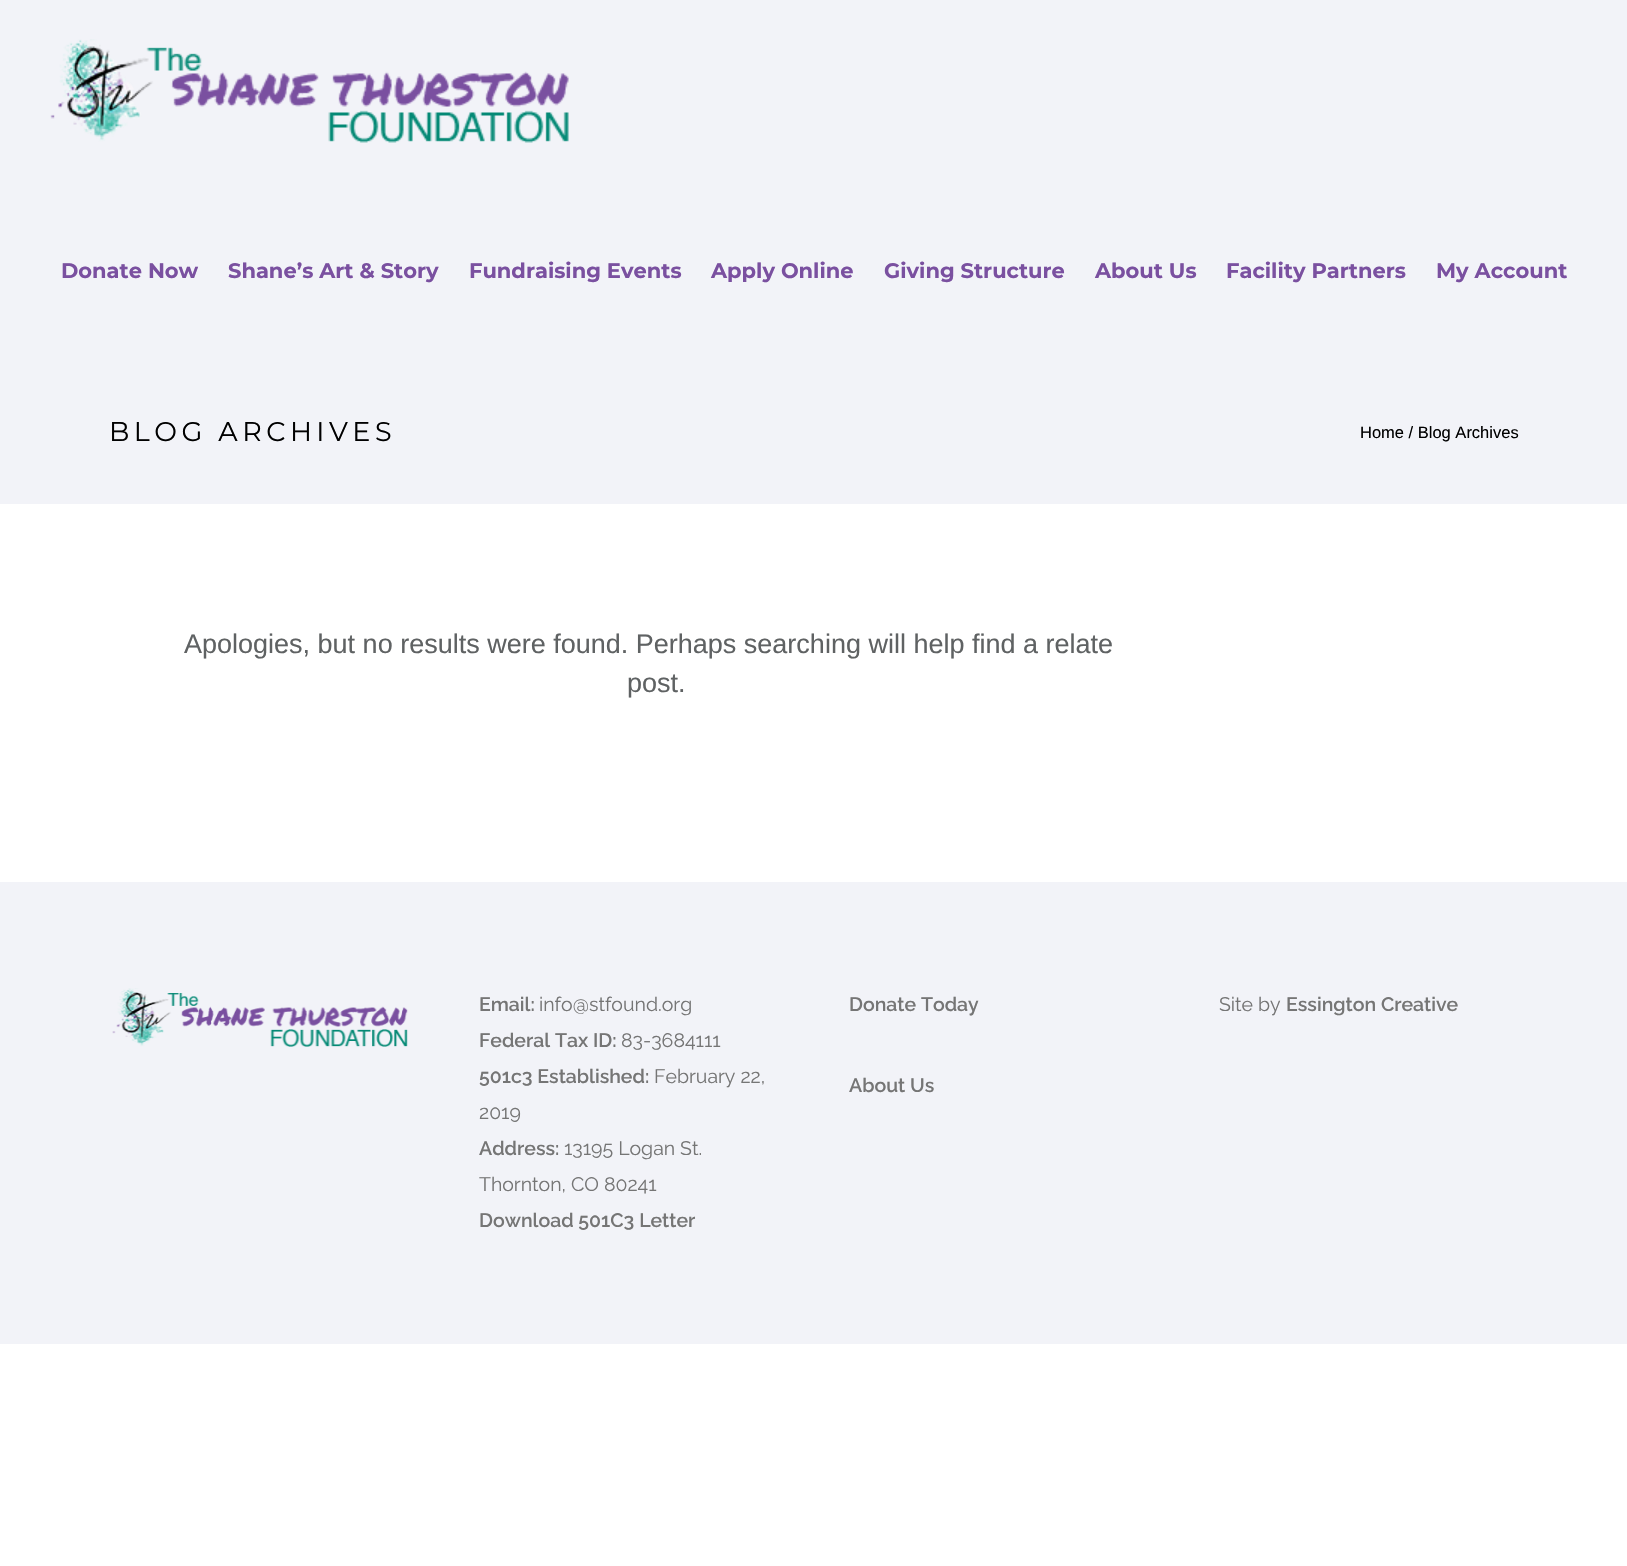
void draw(SkCanvas* canvas) {
    SkPaint paint;
    paint.setAntiAlias(true);
    auto spacedText = [&](const char* s, float x, float y, const SkFont& font, const SkPaint& ink, float letter, float word) {
        std::vector<SkGlyphID> glyphs(font.countText(s, strlen(s), SkTextEncoding::kUTF8));
        std::vector<float> xs(glyphs.size());
        font.textToGlyphs(s, strlen(s), SkTextEncoding::kUTF8, glyphs);
        font.getXPos(glyphs, xs, x);
        float extra = 0;
        for (size_t i = 0; i < glyphs.size(); i++) {
            xs[i] += extra;
            extra += letter + word * (glyphs[i] == font.unicharToGlyph(' '));
        }
        canvas->drawTextBlob(SkTextBlob::MakeFromPosHGlyphs(glyphs, xs, y, font), 0, 0, ink);
    };
    canvas->clear(0xFFFFFFFF);
    paint.setColor(0xFFF2F3F8);
    canvas->drawRect(SkRect::MakeXYWH(0, 0, 1627, 504), paint);
    canvas->drawImageRect(SkImages::DeferredFromEncodedData(SkData::MakeFromFileName("img1.png")), SkRect::MakeXYWH(50, 39, 519, 104), SkSamplingOptions());
    SkFont font1(fontMgr->matchFamilyStyle("Montserrat", SkFontStyle::Bold()), 21);
    font1.setSubpixel(true);
    paint.setColor(0xFF7A50A0);
    canvas->drawString("Donate Now", 61, 278, font1, paint);
    canvas->drawString("Shane’s Art & Story", 228, 278, font1, paint);
    canvas->drawString("Fundraising Events", 469, 278, font1, paint);
    canvas->drawString("Apply Online", 711, 278, font1, paint);
    canvas->drawString("Giving Structure", 884, 278, font1, paint);
    canvas->drawString("About Us", 1095, 278, font1, paint);
    canvas->drawString("Facility Partners", 1226, 278, font1, paint);
    canvas->drawString("My Account", 1436, 278, font1, paint);
    SkFont font2(fontMgr->matchFamilyStyle("Montserrat", SkFontStyle::Normal()), 27);
    font2.setSubpixel(true);
    paint.setColor(0xFF000000);
    spacedText("BLOG ARCHIVES", 109, 441, font2, paint, 4.5f, 0);
    SkFont font3(fontMgr->matchFamilyStyle("Liberation Sans", SkFontStyle::Normal()), 16.5f);
    font3.setSubpixel(true);
    canvas->drawString("Home / Blog Archives", 1360, 438, font3, paint);
    SkFont font4(fontMgr->matchFamilyStyle("Liberation Sans", SkFontStyle::Normal()), 27);
    font4.setSubpixel(true);
    paint.setColor(0xFF5F6263);
    canvas->drawString("Apologies, but no results were found. Perhaps searching will help find a relate", 184, 653, font4, paint);
    canvas->drawString("post.", 627, 692, font4, paint);
    paint.setColor(0xFFF2F3F8);
    canvas->drawRect(SkRect::MakeXYWH(0, 882, 1627, 462), paint);
    canvas->drawImageRect(SkImages::DeferredFromEncodedData(SkData::MakeFromFileName("img2.png")), SkRect::MakeXYWH(112, 988, 296, 59), SkSamplingOptions());
    SkFont font5(fontMgr->matchFamilyStyle("Raleway", SkFontStyle(600, SkFontStyle::kNormal_Width, SkFontStyle::kUpright_Slant)), 19.5f);
    font5.setSubpixel(true);
    paint.setColor(0xFF757575);
    canvas->drawString("Email:", 479, 1011, font5, paint);
    SkFont font6(fontMgr->matchFamilyStyle("Raleway", SkFontStyle::Normal()), 19.5f);
    font6.setSubpixel(true);
    canvas->drawString("info@stfound.org", 539, 1011, font6, paint);
    canvas->drawString("Federal Tax ID:", 479, 1047, font5, paint);
    canvas->drawString("83-3684111", 621, 1047, font6, paint);
    canvas->drawString("501c3 Established:", 479, 1083, font5, paint);
    canvas->drawString("February 22,", 654, 1083, font6, paint);
    canvas->drawString("2019", 479, 1119, font6, paint);
    canvas->drawString("Address:", 479, 1155, font5, paint);
    canvas->drawString("13195 Logan St.", 564, 1155, font6, paint);
    canvas->drawString("Thornton, CO 80241", 479, 1191, font6, paint);
    canvas->drawString("Download 501C3 Letter", 479, 1227, font5, paint);
    canvas->drawString("Donate Today", 849, 1011, font5, paint);
    canvas->drawString("About Us", 849, 1092, font5, paint);
    canvas->drawString("Site by", 1219, 1011, font6, paint);
    canvas->drawString("Essington Creative", 1286, 1011, font5, paint);
}
